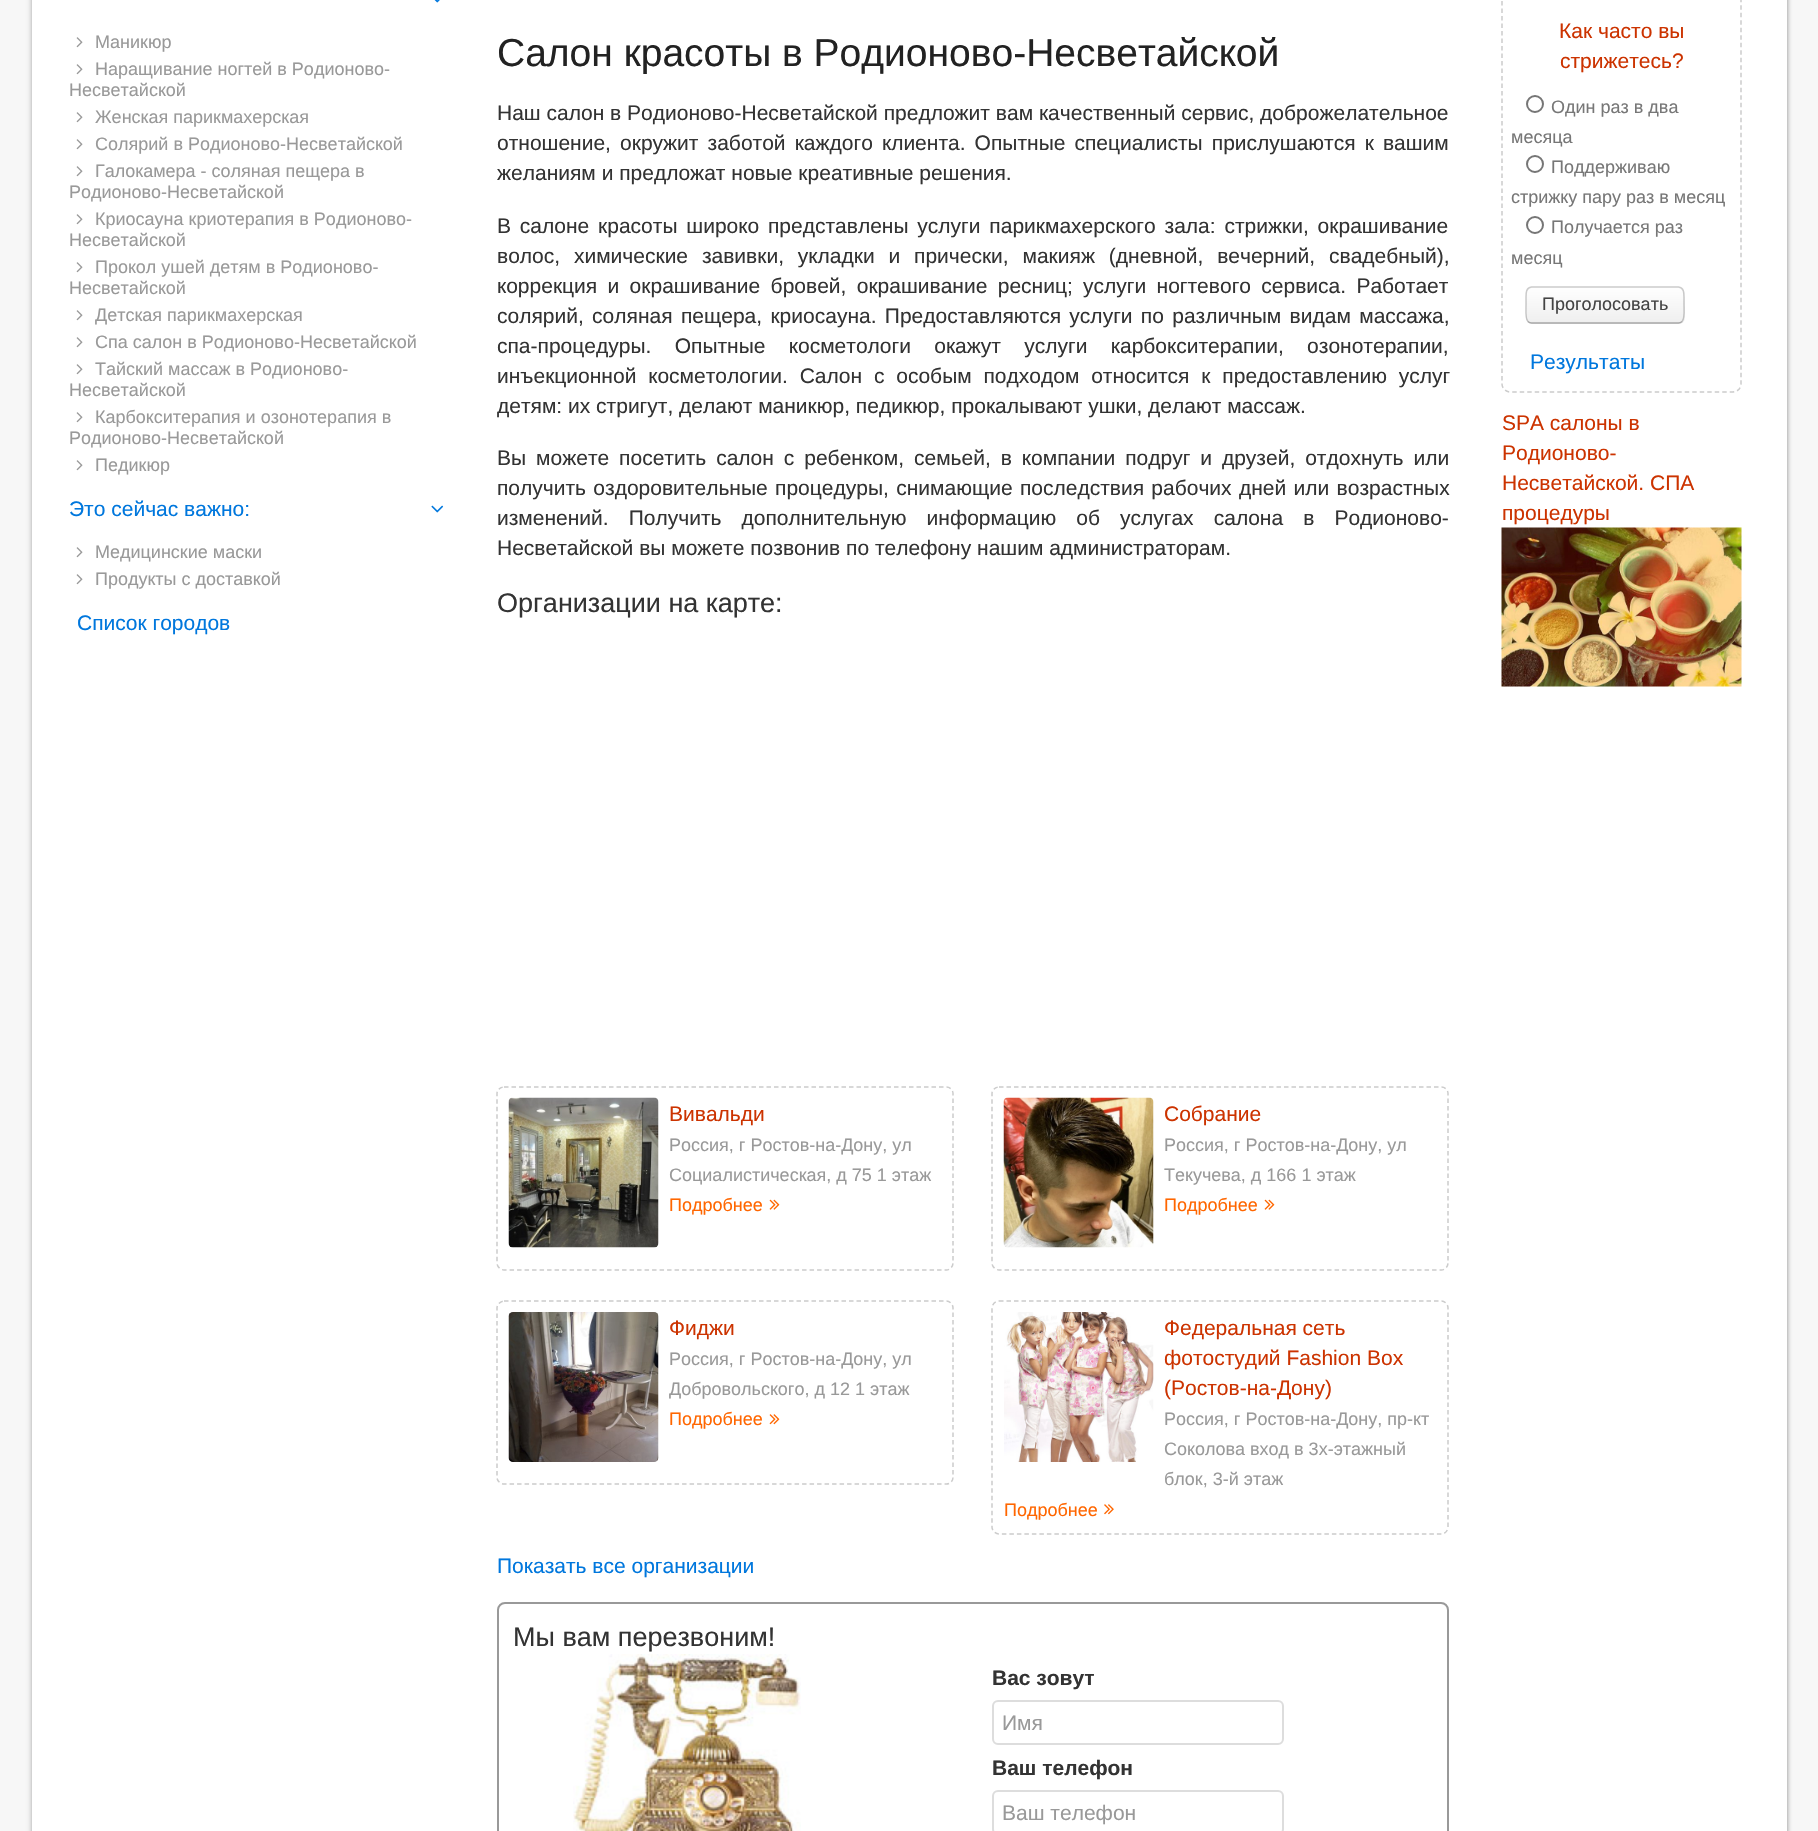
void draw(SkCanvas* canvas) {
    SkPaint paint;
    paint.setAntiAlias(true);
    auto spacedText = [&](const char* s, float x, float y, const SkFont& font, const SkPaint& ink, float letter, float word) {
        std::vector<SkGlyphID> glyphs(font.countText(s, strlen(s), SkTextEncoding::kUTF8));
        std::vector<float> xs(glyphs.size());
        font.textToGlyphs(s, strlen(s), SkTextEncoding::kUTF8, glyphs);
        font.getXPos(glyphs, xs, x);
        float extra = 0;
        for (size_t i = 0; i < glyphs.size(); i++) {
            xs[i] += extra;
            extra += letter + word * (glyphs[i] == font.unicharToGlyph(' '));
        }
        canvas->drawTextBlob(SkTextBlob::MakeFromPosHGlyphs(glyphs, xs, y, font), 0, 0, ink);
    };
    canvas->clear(0xFFF7F7F7);
    paint.setColor(0x1A000000);
    paint.setMaskFilter(SkMaskFilter::MakeBlur(kNormal_SkBlurStyle, 2));
    canvas->drawRoundRect(SkRect::MakeXYWH(30, -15, 1755, 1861), 9, 9, paint);
    paint.setMaskFilter(nullptr);
    paint.setColor(0x4D000000);
    paint.setMaskFilter(SkMaskFilter::MakeBlur(kNormal_SkBlurStyle, 2));
    canvas->drawRoundRect(SkRect::MakeXYWH(33, -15, 1755, 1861), 9, 9, paint);
    paint.setMaskFilter(nullptr);
    paint.setColor(0xFFFFFFFF);
    canvas->drawRect(SkRect::MakeXYWH(32, 0, 1755, 1831), paint);
    canvas->drawImageRect(SkImages::DeferredFromEncodedData(SkData::MakeFromFileName("img1.png")), SkRect::MakeXYWH(434, 0, 6, 3), SkSamplingOptions());
    canvas->drawImageRect(SkImages::DeferredFromEncodedData(SkData::MakeFromFileName("img2.png")), SkRect::MakeXYWH(76, 37, 7, 11), SkSamplingOptions());
    SkFont font1(fontMgr->matchFamilyStyle("Liberation Sans", SkFontStyle::Normal()), 18);
    font1.setSubpixel(true);
    paint.setColor(0xFF999999);
    canvas->drawString("Маникюр", 95, 48, font1, paint);
    canvas->drawImageRect(SkImages::DeferredFromEncodedData(SkData::MakeFromFileName("img2.png")), SkRect::MakeXYWH(76, 64, 7, 11), SkSamplingOptions());
    canvas->drawString("Наращивание ногтей в Родионово-", 95, 75, font1, paint);
    canvas->drawString("Несветайской", 69, 96, font1, paint);
    canvas->drawImageRect(SkImages::DeferredFromEncodedData(SkData::MakeFromFileName("img2.png")), SkRect::MakeXYWH(76, 112, 7, 11), SkSamplingOptions());
    canvas->drawString("Женская парикмахерская", 95, 123, font1, paint);
    canvas->drawImageRect(SkImages::DeferredFromEncodedData(SkData::MakeFromFileName("img2.png")), SkRect::MakeXYWH(76, 139, 7, 11), SkSamplingOptions());
    canvas->drawString("Солярий в Родионово-Несветайской", 95, 150, font1, paint);
    canvas->drawImageRect(SkImages::DeferredFromEncodedData(SkData::MakeFromFileName("img2.png")), SkRect::MakeXYWH(76, 166, 7, 11), SkSamplingOptions());
    canvas->drawString("Галокамера - соляная пещера в", 95, 177, font1, paint);
    canvas->drawString("Родионово-Несветайской", 69, 198, font1, paint);
    canvas->drawImageRect(SkImages::DeferredFromEncodedData(SkData::MakeFromFileName("img2.png")), SkRect::MakeXYWH(76, 214, 7, 11), SkSamplingOptions());
    canvas->drawString("Криосауна криотерапия в Родионово-", 95, 225, font1, paint);
    canvas->drawString("Несветайской", 69, 246, font1, paint);
    canvas->drawImageRect(SkImages::DeferredFromEncodedData(SkData::MakeFromFileName("img2.png")), SkRect::MakeXYWH(76, 262, 7, 11), SkSamplingOptions());
    canvas->drawString("Прокол ушей детям в Родионово-", 95, 273, font1, paint);
    canvas->drawString("Несветайской", 69, 294, font1, paint);
    canvas->drawImageRect(SkImages::DeferredFromEncodedData(SkData::MakeFromFileName("img2.png")), SkRect::MakeXYWH(76, 310, 7, 11), SkSamplingOptions());
    canvas->drawString("Детская парикмахерская", 95, 321, font1, paint);
    canvas->drawImageRect(SkImages::DeferredFromEncodedData(SkData::MakeFromFileName("img2.png")), SkRect::MakeXYWH(76, 337, 7, 11), SkSamplingOptions());
    canvas->drawString("Спа салон в Родионово-Несветайской", 95, 348, font1, paint);
    canvas->drawImageRect(SkImages::DeferredFromEncodedData(SkData::MakeFromFileName("img2.png")), SkRect::MakeXYWH(76, 364, 7, 11), SkSamplingOptions());
    canvas->drawString("Тайский массаж в Родионово-", 95, 375, font1, paint);
    canvas->drawString("Несветайской", 69, 396, font1, paint);
    canvas->drawImageRect(SkImages::DeferredFromEncodedData(SkData::MakeFromFileName("img2.png")), SkRect::MakeXYWH(76, 412, 7, 11), SkSamplingOptions());
    canvas->drawString("Карбокситерапия и озонотерапия в", 95, 423, font1, paint);
    canvas->drawString("Родионово-Несветайской", 69, 444, font1, paint);
    canvas->drawImageRect(SkImages::DeferredFromEncodedData(SkData::MakeFromFileName("img2.png")), SkRect::MakeXYWH(76, 460, 7, 11), SkSamplingOptions());
    canvas->drawString("Педикюр", 95, 471, font1, paint);
    SkFont font2(fontMgr->matchFamilyStyle("Liberation Sans", SkFontStyle::Normal()), 21);
    font2.setSubpixel(true);
    paint.setColor(0xFF0077DD);
    canvas->drawString("Это сейчас важно:", 69, 516, font2, paint);
    canvas->drawImageRect(SkImages::DeferredFromEncodedData(SkData::MakeFromFileName("img3.png")), SkRect::MakeXYWH(431, 505, 13, 8), SkSamplingOptions());
    canvas->drawImageRect(SkImages::DeferredFromEncodedData(SkData::MakeFromFileName("img2.png")), SkRect::MakeXYWH(76, 547, 7, 11), SkSamplingOptions());
    paint.setColor(0xFF999999);
    canvas->drawString("Медицинские маски", 95, 558, font1, paint);
    canvas->drawImageRect(SkImages::DeferredFromEncodedData(SkData::MakeFromFileName("img2.png")), SkRect::MakeXYWH(76, 574, 7, 11), SkSamplingOptions());
    canvas->drawString("Продукты с доставкой", 95, 585, font1, paint);
    paint.setColor(0xFF0077DD);
    canvas->drawString("Список городов", 77, 630, font2, paint);
    SkFont font3(fontMgr->matchFamilyStyle("Liberation Sans", SkFontStyle::Normal()), 39);
    font3.setSubpixel(true);
    paint.setColor(0xFF222222);
    canvas->drawString("Салон красоты в Родионово-Несветайской", 497, 66, font3, paint);
    paint.setColor(0xFF333333);
    canvas->drawString("Наш салон в Родионово-Несветайской предложит вам качественный сервис, доброжелательное", 497, 120, font2, paint);
    spacedText("отношение, окружит заботой каждого клиента. Опытные специалисты прислушаются к вашим", 497, 150, font2, paint, 0, 3.25f);
    canvas->drawString("желаниям и предложат новые креативные решения.", 497, 180, font2, paint);
    spacedText("В салоне красоты широко представлены услуги парикмахерского зала: стрижки, окрашивание", 497, 233, font2, paint, 0, 3);
    spacedText("волос, химические завивки, укладки и прически, макияж (дневной, вечерний, свадебный),", 497, 263, font2, paint, 0, 8);
    spacedText("коррекция и окрашивание бровей, окрашивание ресниц; услуги ногтевого сервиса. Работает", 497, 293, font2, paint, 0, 4.5f);
    spacedText("солярий, соляная пещера, криосауна. Предоставляются услуги по различным видам массажа,", 497, 323, font2, paint, 0, 2.5f);
    spacedText("спа-процедуры. Опытные косметологи окажут услуги карбокситерапии, озонотерапии,", 497, 353, font2, paint, 0, 17.5f);
    spacedText("инъекционной косметологии. Салон с особым подходом относится к предоставлению услуг", 497, 383, font2, paint, 0, 6);
    canvas->drawString("детям: их стригут, делают маникюр, педикюр, прокалывают ушки, делают массаж.", 497, 413, font2, paint);
    spacedText("Вы можете посетить салон с ребенком, семьей, в компании подруг и друзей, отдохнуть или", 497, 465, font2, paint, 0, 4.1f);
    spacedText("получить оздоровительные процедуры, снимающие последствия рабочих дней или возрастных", 497, 495, font2, paint, 0, 1.5f);
    spacedText("изменений. Получить дополнительную информацию об услугах салона в Родионово-", 497, 525, font2, paint, 0, 14.25f);
    canvas->drawString("Несветайской вы можете позвонив по телефону нашим администраторам.", 497, 555, font2, paint);
    SkFont font4(fontMgr->matchFamilyStyle("Liberation Sans", SkFontStyle::Normal()), 27);
    font4.setSubpixel(true);
    canvas->drawString("Организации на карте:", 497, 612, font4, paint);
    paint.setStyle(SkPaint::kStroke_Style);
    paint.setStrokeWidth(1.5f);
    paint.setColor(0xFFCCCCCC);
    paint.setPathEffect(SkDashPathEffect::Make({{4.5f, 3}}, 0));
    canvas->drawPath(SkPathBuilder().moveTo(504, 1087).lineTo(946.5f, 1087).cubicTo(950, 1087, 953, 1090, 953, 1093.5f).lineTo(953, 1263).cubicTo(953, 1266.5f, 950, 1270, 946.5f, 1270).lineTo(504, 1270).cubicTo(500.5f, 1270, 497, 1266.5f, 497, 1263).lineTo(497, 1093.5f).cubicTo(497, 1090, 500.5f, 1087, 504, 1087).close().detach(), paint);
    paint.setPathEffect(nullptr);
    canvas->drawImageRect(SkImages::DeferredFromEncodedData(SkData::MakeFromFileName("img4.png")), SkRect::MakeXYWH(508, 1097, 151, 151), SkSamplingOptions());
    paint.setStyle(SkPaint::kFill_Style);
    paint.setColor(0xFFCC3300);
    canvas->drawString("Вивальди", 669, 1121, font2, paint);
    paint.setColor(0xFF999999);
    canvas->drawString("Россия, г Ростов-на-Дону, ул", 669, 1151, font1, paint);
    canvas->drawString("Социалистическая, д 75 1 этаж", 669, 1181, font1, paint);
    paint.setColor(0xFFFF6600);
    canvas->drawString("Подробнее", 669, 1211, font1, paint);
    canvas->drawImageRect(SkImages::DeferredFromEncodedData(SkData::MakeFromFileName("img5.png")), SkRect::MakeXYWH(769, 1199, 11, 11), SkSamplingOptions());
    paint.setStyle(SkPaint::kStroke_Style);
    paint.setColor(0xFFCCCCCC);
    paint.setPathEffect(SkDashPathEffect::Make({{4.5f, 3}}, 0));
    canvas->drawPath(SkPathBuilder().moveTo(999, 1087).lineTo(1441.5f, 1087).cubicTo(1445, 1087, 1448, 1090, 1448, 1093.5f).lineTo(1448, 1263).cubicTo(1448, 1266.5f, 1445, 1270, 1441.5f, 1270).lineTo(999, 1270).cubicTo(995.5f, 1270, 992, 1266.5f, 992, 1263).lineTo(992, 1093.5f).cubicTo(992, 1090, 995.5f, 1087, 999, 1087).close().detach(), paint);
    paint.setPathEffect(nullptr);
    canvas->drawImageRect(SkImages::DeferredFromEncodedData(SkData::MakeFromFileName("img6.png")), SkRect::MakeXYWH(1003, 1097, 151, 151), SkSamplingOptions());
    paint.setStyle(SkPaint::kFill_Style);
    paint.setColor(0xFFCC3300);
    canvas->drawString("Собрание", 1164, 1121, font2, paint);
    paint.setColor(0xFF999999);
    canvas->drawString("Россия, г Ростов-на-Дону, ул", 1164, 1151, font1, paint);
    canvas->drawString("Текучева, д 166 1 этаж", 1164, 1181, font1, paint);
    paint.setColor(0xFFFF6600);
    canvas->drawString("Подробнее", 1164, 1211, font1, paint);
    canvas->drawImageRect(SkImages::DeferredFromEncodedData(SkData::MakeFromFileName("img5.png")), SkRect::MakeXYWH(1264, 1199, 11, 11), SkSamplingOptions());
    paint.setStyle(SkPaint::kStroke_Style);
    paint.setColor(0xFFCCCCCC);
    paint.setPathEffect(SkDashPathEffect::Make({{4.5f, 3}}, 0));
    canvas->drawPath(SkPathBuilder().moveTo(504, 1301).lineTo(946.5f, 1301).cubicTo(950, 1301, 953, 1304.5f, 953, 1308).lineTo(953, 1477.5f).cubicTo(953, 1481, 950, 1484, 946.5f, 1484).lineTo(504, 1484).cubicTo(500.5f, 1484, 497, 1481, 497, 1477.5f).lineTo(497, 1308).cubicTo(497, 1304.5f, 500.5f, 1301, 504, 1301).close().detach(), paint);
    paint.setPathEffect(nullptr);
    canvas->drawImageRect(SkImages::DeferredFromEncodedData(SkData::MakeFromFileName("img7.png")), SkRect::MakeXYWH(508, 1312, 151, 150), SkSamplingOptions());
    paint.setStyle(SkPaint::kFill_Style);
    paint.setColor(0xFFCC3300);
    canvas->drawString("Фиджи", 669, 1335, font2, paint);
    paint.setColor(0xFF999999);
    canvas->drawString("Россия, г Ростов-на-Дону, ул", 669, 1365, font1, paint);
    canvas->drawString("Добровольского, д 12 1 этаж", 669, 1395, font1, paint);
    paint.setColor(0xFFFF6600);
    canvas->drawString("Подробнее", 669, 1425, font1, paint);
    canvas->drawImageRect(SkImages::DeferredFromEncodedData(SkData::MakeFromFileName("img8.png")), SkRect::MakeXYWH(769, 1414, 11, 11), SkSamplingOptions());
    paint.setStyle(SkPaint::kStroke_Style);
    paint.setColor(0xFFCCCCCC);
    paint.setPathEffect(SkDashPathEffect::Make({{4.5f, 3}}, 0));
    canvas->drawPath(SkPathBuilder().moveTo(999, 1301).lineTo(1441.5f, 1301).cubicTo(1445, 1301, 1448, 1304.5f, 1448, 1308).lineTo(1448, 1527).cubicTo(1448, 1530.5f, 1445, 1534, 1441.5f, 1534).lineTo(999, 1534).cubicTo(995.5f, 1534, 992, 1530.5f, 992, 1527).lineTo(992, 1308).cubicTo(992, 1304.5f, 995.5f, 1301, 999, 1301).close().detach(), paint);
    paint.setPathEffect(nullptr);
    canvas->drawImageRect(SkImages::DeferredFromEncodedData(SkData::MakeFromFileName("img9.png")), SkRect::MakeXYWH(1004, 1312, 150, 150), SkSamplingOptions());
    paint.setStyle(SkPaint::kFill_Style);
    paint.setColor(0xFFCC3300);
    canvas->drawString("Федеральная сеть", 1164, 1335, font2, paint);
    canvas->drawString("фотостудий Fashion Box", 1164, 1365, font2, paint);
    canvas->drawString("(Ростов-на-Дону)", 1164, 1395, font2, paint);
    paint.setColor(0xFF999999);
    canvas->drawString("Россия, г Ростов-на-Дону, пр-кт", 1164, 1425, font1, paint);
    canvas->drawString("Соколова вход в 3х-этажный", 1164, 1455, font1, paint);
    canvas->drawString("блок, 3-й этаж", 1164, 1485, font1, paint);
    paint.setColor(0xFFFF6600);
    canvas->drawString("Подробнее", 1004, 1516, font1, paint);
    canvas->drawImageRect(SkImages::DeferredFromEncodedData(SkData::MakeFromFileName("img10.png")), SkRect::MakeXYWH(1104, 1504, 10, 11), SkSamplingOptions());
    paint.setColor(0xFF0077DD);
    canvas->drawString("Показать все организации", 497, 1573, font2, paint);
    paint.setStyle(SkPaint::kStroke_Style);
    paint.setStrokeWidth(2);
    paint.setColor(0xFF999999);
    canvas->drawRoundRect(SkRect::MakeXYWH(498, 1603, 950, 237), 7, 7, paint);
    paint.setStyle(SkPaint::kFill_Style);
    paint.setColor(0xFF333333);
    canvas->drawString("Мы вам перезвоним!", 513, 1646, font4, paint);
    canvas->drawImageRect(SkImages::DeferredFromEncodedData(SkData::MakeFromFileName("img11.png")), SkRect::MakeXYWH(573, 1654, 228, 177), SkSamplingOptions());
    SkFont font5(fontMgr->matchFamilyStyle("Liberation Sans", SkFontStyle::Bold()), 21);
    font5.setSubpixel(true);
    canvas->drawString("Вас зовут", 992, 1685, font5, paint);
    paint.setStyle(SkPaint::kStroke_Style);
    paint.setColor(0xFFDDDDDD);
    canvas->drawRoundRect(SkRect::MakeXYWH(993, 1701, 290, 43), 5, 5, paint);
    paint.setStyle(SkPaint::kFill_Style);
    paint.setColor(0xFF999999);
    canvas->drawString("Имя", 1002, 1730, font2, paint);
    paint.setColor(0xFF333333);
    canvas->drawString("Ваш телефон", 992, 1775, font5, paint);
    paint.setStyle(SkPaint::kStroke_Style);
    paint.setColor(0xFFDDDDDD);
    canvas->drawRoundRect(SkRect::MakeXYWH(993, 1791, 290, 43), 5, 5, paint);
    paint.setStyle(SkPaint::kFill_Style);
    paint.setColor(0xFF999999);
    canvas->drawString("Ваш телефон", 1002, 1820, font2, paint);
    paint.setStyle(SkPaint::kStroke_Style);
    paint.setStrokeWidth(1.5f);
    paint.setColor(0xFFCCCCCC);
    paint.setPathEffect(SkDashPathEffect::Make({{4.5f, 3}}, 0));
    canvas->drawPath(SkPathBuilder().moveTo(1510.5f, -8).lineTo(1732.5f, -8).cubicTo(1737, -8, 1741, -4.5f, 1741, 0).lineTo(1741, 384).cubicTo(1741, 388.5f, 1737, 392, 1732.5f, 392).lineTo(1510.5f, 392).cubicTo(1506, 392, 1502, 388.5f, 1502, 384).lineTo(1502, 0).cubicTo(1502, -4.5f, 1506, -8, 1510.5f, -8).close().detach(), paint);
    paint.setPathEffect(nullptr);
    paint.setStyle(SkPaint::kFill_Style);
    paint.setColor(0xFFCC3300);
    canvas->drawString("Как часто вы", 1559, 38, font2, paint);
    canvas->drawString("стрижетесь?", 1560, 68, font2, paint);
    paint.setStyle(SkPaint::kStroke_Style);
    paint.setStrokeWidth(2);
    paint.setColor(0xFF767676);
    canvas->drawCircle(1535, 104, 8, paint);
    paint.setStyle(SkPaint::kFill_Style);
    paint.setColor(0xFF777777);
    canvas->drawString("Один раз в два", 1551, 113, font1, paint);
    canvas->drawString("месяца", 1511, 143, font1, paint);
    paint.setStyle(SkPaint::kStroke_Style);
    paint.setColor(0xFF767676);
    canvas->drawCircle(1535, 164, 8, paint);
    paint.setStyle(SkPaint::kFill_Style);
    paint.setColor(0xFF777777);
    canvas->drawString("Поддерживаю", 1551, 173, font1, paint);
    canvas->drawString("стрижку пару раз в месяц", 1511, 203, font1, paint);
    paint.setStyle(SkPaint::kStroke_Style);
    paint.setColor(0xFF767676);
    canvas->drawCircle(1535, 225, 8, paint);
    paint.setStyle(SkPaint::kFill_Style);
    paint.setColor(0xFF777777);
    canvas->drawString("Получается раз", 1551, 233, font1, paint);
    canvas->drawString("месяц", 1511, 264, font1, paint);
    {
        const SkColor colors[] = {0xFFFFFFFF, 0xFFEEEEEE};
        const float stops[] = {0, 1};
        const SkPoint ends[] = {{1605, 287}, {1605, 324}};
        paint.setShader(SkGradientShader::MakeLinear(ends, colors, stops, 2, SkTileMode::kClamp));
        paint.setAlpha(255);
    }
    canvas->drawRoundRect(SkRect::MakeXYWH(1526, 287, 159, 37), 6, 6, paint);
    paint.setStyle(SkPaint::kStroke_Style);
    paint.setStrokeWidth(1.5f);
    paint.setShader(nullptr);
    paint.setColor(0x4D000000);
    canvas->drawPath(SkPathBuilder().moveTo(1682, 321.5f).cubicTo(1681, 322.5f, 1680, 323, 1678.5f, 323).lineTo(1531.5f, 323).cubicTo(1530, 323, 1529, 322.5f, 1528, 321.5f).detach(), paint);
    paint.setColor(0x33000000);
    canvas->drawPath(SkPathBuilder().moveTo(1528, 321.5f).cubicTo(1525, 319, 1526, 309, 1526, 305).lineTo(1526, 297).cubicTo(1526, 293, 1526, 287.5f, 1531.5f, 287).lineTo(1678.5f, 287).cubicTo(1684, 287.5f, 1684, 293, 1684, 297).lineTo(1684, 305).cubicTo(1684, 309, 1685, 319, 1682, 321.5f).detach(), paint);
    paint.setStyle(SkPaint::kFill_Style);
    paint.setColor(0xFF444444);
    canvas->drawString("Проголосовать", 1542, 310, font1, paint);
    paint.setColor(0xFF0077DD);
    canvas->drawString("Результаты", 1530, 369, font2, paint);
    paint.setColor(0xFFCC3300);
    canvas->drawString("SPA салоны в", 1502, 430, font2, paint);
    canvas->drawString("Родионово-", 1502, 460, font2, paint);
    canvas->drawString("Несветайской. СПА", 1502, 490, font2, paint);
    canvas->drawString("процедуры", 1502, 520, font2, paint);
    canvas->drawImageRect(SkImages::DeferredFromEncodedData(SkData::MakeFromFileName("img12.png")), SkRect::MakeXYWH(1501, 527, 241, 160), SkSamplingOptions());
}
